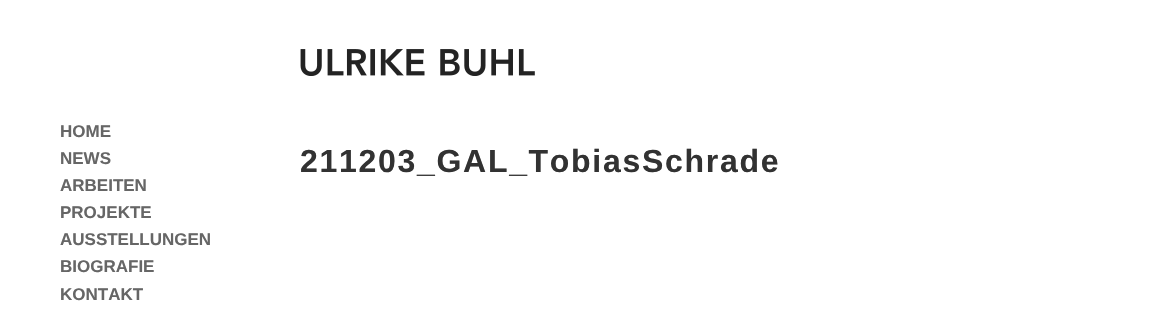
void draw(SkCanvas* canvas) {
    SkPaint paint;
    paint.setAntiAlias(true);
    auto spacedText = [&](const char* s, float x, float y, const SkFont& font, const SkPaint& ink, float letter, float word) {
        std::vector<SkGlyphID> glyphs(font.countText(s, strlen(s), SkTextEncoding::kUTF8));
        std::vector<float> xs(glyphs.size());
        font.textToGlyphs(s, strlen(s), SkTextEncoding::kUTF8, glyphs);
        font.getXPos(glyphs, xs, x);
        float extra = 0;
        for (size_t i = 0; i < glyphs.size(); i++) {
            xs[i] += extra;
            extra += letter + word * (glyphs[i] == font.unicharToGlyph(' '));
        }
        canvas->drawTextBlob(SkTextBlob::MakeFromPosHGlyphs(glyphs, xs, y, font), 0, 0, ink);
    };
    canvas->clear(0xFFFFFFFF);
    canvas->drawImageRect(SkImages::DeferredFromEncodedData(SkData::MakeFromFileName("img1.png")), SkRect::MakeXYWH(300, 49, 235, 27), SkSamplingOptions());
    SkFont font1(fontMgr->matchFamilyStyle("Liberation Sans", SkFontStyle::Bold()), 17);
    font1.setSubpixel(true);
    paint.setColor(0xFF666666);
    canvas->drawString("HOME", 60, 137, font1, paint);
    canvas->drawString("NEWS", 60, 164, font1, paint);
    canvas->drawString("ARBEITEN", 60, 191, font1, paint);
    canvas->drawString("PROJEKTE", 60, 218, font1, paint);
    canvas->drawString("AUSSTELLUNGEN", 60, 245, font1, paint);
    canvas->drawString("BIOGRAFIE", 60, 272, font1, paint);
    canvas->drawString("KONTAKT", 60, 300, font1, paint);
    SkFont font2(fontMgr->matchFamilyStyle("Liberation Sans", SkFontStyle::Bold()), 32);
    font2.setSubpixel(true);
    paint.setColor(0xFF323232);
    spacedText("211203_GAL_TobiasSchrade", 300, 172, font2, paint, 1.7f, 0);
}
